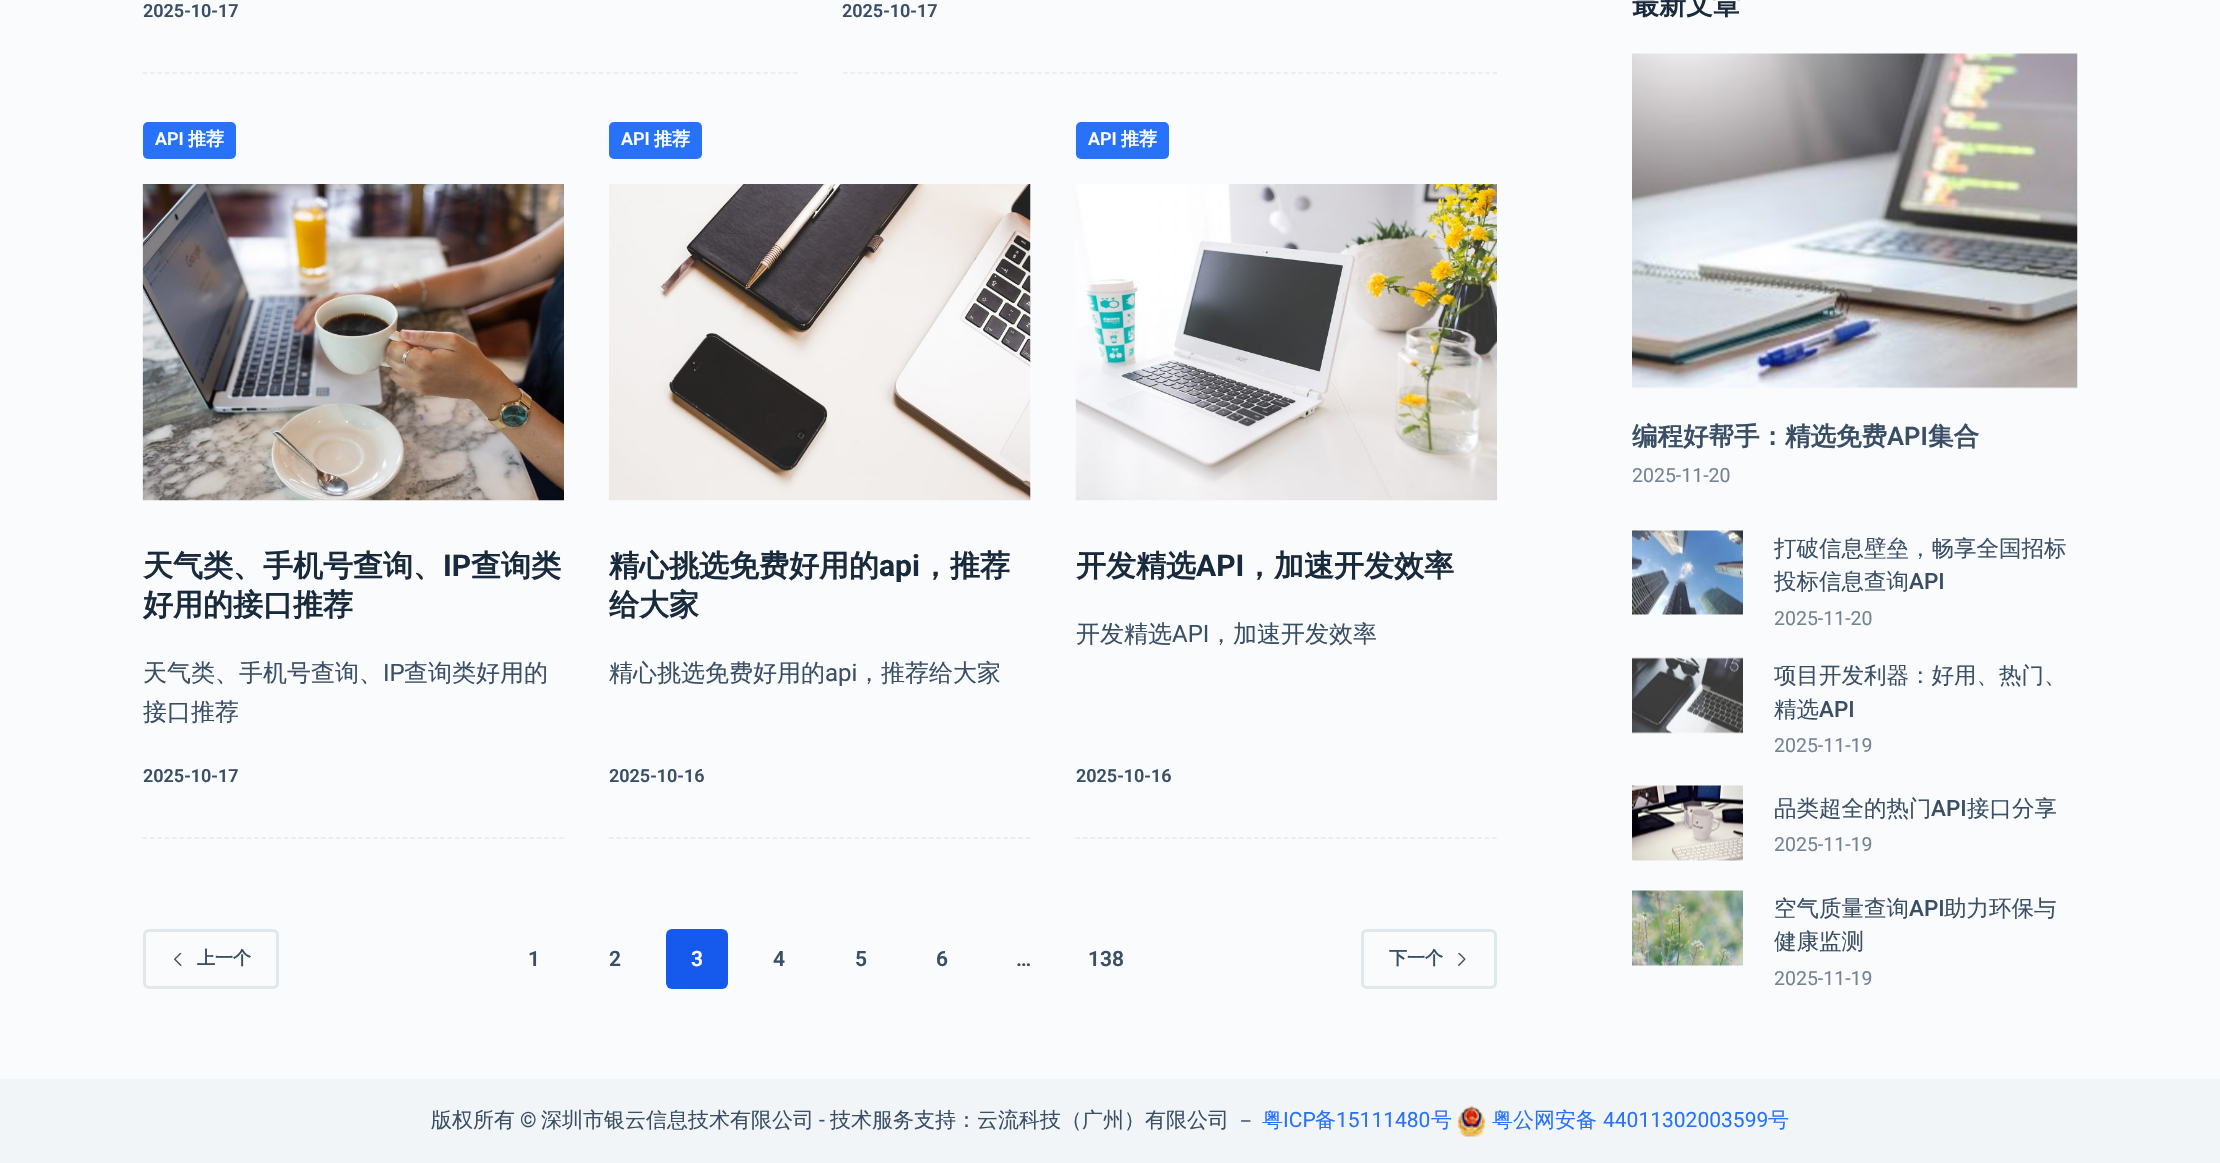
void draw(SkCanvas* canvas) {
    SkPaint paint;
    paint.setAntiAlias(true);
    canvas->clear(0xFFFAFBFC);
    paint.setStyle(SkPaint::kStroke_Style);
    paint.setStrokeWidth(1.5f);
    paint.setColor(0xFFE5E9EE);
    paint.setPathEffect(SkDashPathEffect::Make({{4.5f, 2.98f}}, 0));
    canvas->drawPath(SkPathBuilder().moveTo(142.5f, 73).lineTo(798, 73).detach(), paint);
    paint.setPathEffect(nullptr);
    SkFont font1(fontMgr->matchFamilyStyle("Roboto", SkFontStyle(600, SkFontStyle::kNormal_Width, SkFontStyle::kUpright_Slant)), 18);
    font1.setSubpixel(true);
    paint.setStyle(SkPaint::kFill_Style);
    paint.setColor(0xFF3A4F66);
    canvas->drawString("2025-10-17", 143, 17, font1, paint);
    paint.setStyle(SkPaint::kStroke_Style);
    paint.setColor(0xFFE5E9EE);
    paint.setPathEffect(SkDashPathEffect::Make({{4.5f, 2.97f}}, 0));
    canvas->drawPath(SkPathBuilder().moveTo(843, 73).lineTo(1497, 73).detach(), paint);
    paint.setPathEffect(nullptr);
    paint.setStyle(SkPaint::kFill_Style);
    paint.setColor(0xFF3A4F66);
    canvas->drawString("2025-10-17", 842, 17, font1, paint);
    paint.setStyle(SkPaint::kStroke_Style);
    paint.setColor(0xFFE5E9EE);
    paint.setPathEffect(SkDashPathEffect::Make({{4.5f, 2.94f}}, 0));
    canvas->drawPath(SkPathBuilder().moveTo(142.5f, 838).lineTo(564, 838).detach(), paint);
    paint.setPathEffect(nullptr);
    paint.setStyle(SkPaint::kFill_Style);
    paint.setColor(0xFF2872FA);
    canvas->drawRoundRect(SkRect::MakeXYWH(143, 122, 93, 37), 5, 5, paint);
    paint.setColor(0xFFFFFFFF);
    canvas->drawString("API", 155, 145, font1, paint);
    SkFont font2(fontMgr->matchFamilyStyle("WenQuanYi Zen Hei", SkFontStyle::Bold()), 18);
    font2.setSubpixel(true);
    canvas->drawString("推荐", 188, 145, font2, paint);
    canvas->drawImageRect(SkImages::DeferredFromEncodedData(SkData::MakeFromFileName("img1.png")), SkRect::MakeXYWH(142, 184, 422, 317), SkSamplingOptions());
    SkFont font3(fontMgr->matchFamilyStyle("WenQuanYi Zen Hei", SkFontStyle::Bold()), 30);
    font3.setSubpixel(true);
    paint.setColor(0xFF192A3D);
    canvas->drawString("天气类、手机号查询、", 143, 576, font3, paint);
    SkFont font4(fontMgr->matchFamilyStyle("Roboto", SkFontStyle::Bold()), 30);
    font4.setSubpixel(true);
    canvas->drawString("IP", 443, 576, font4, paint);
    canvas->drawString("查询类", 471, 576, font3, paint);
    canvas->drawString("好用的接口推荐", 143, 615, font3, paint);
    SkFont font5(fontMgr->matchFamilyStyle("WenQuanYi Zen Hei", SkFontStyle(500, SkFontStyle::kNormal_Width, SkFontStyle::kUpright_Slant)), 24);
    font5.setSubpixel(true);
    paint.setColor(0xFF3A4F66);
    canvas->drawString("天气类、手机号查询、", 143, 681, font5, paint);
    SkFont font6(fontMgr->matchFamilyStyle("Roboto", SkFontStyle::Normal()), 24);
    font6.setSubpixel(true);
    canvas->drawString("IP", 383, 681, font6, paint);
    canvas->drawString("查询类好用的", 404, 681, font5, paint);
    canvas->drawString("接口推荐", 143, 720, font5, paint);
    canvas->drawString("2025-10-17", 143, 782, font1, paint);
    paint.setStyle(SkPaint::kStroke_Style);
    paint.setColor(0xFFE5E9EE);
    paint.setPathEffect(SkDashPathEffect::Make({{4.5f, 2.94f}}, 0));
    canvas->drawPath(SkPathBuilder().moveTo(609, 838).lineTo(1030.5f, 838).detach(), paint);
    paint.setPathEffect(nullptr);
    paint.setStyle(SkPaint::kFill_Style);
    paint.setColor(0xFF2872FA);
    canvas->drawRoundRect(SkRect::MakeXYWH(609, 122, 93, 37), 5, 5, paint);
    paint.setColor(0xFFFFFFFF);
    canvas->drawString("API", 621, 145, font1, paint);
    canvas->drawString("推荐", 654, 145, font2, paint);
    canvas->drawImageRect(SkImages::DeferredFromEncodedData(SkData::MakeFromFileName("img2.png")), SkRect::MakeXYWH(609, 184, 422, 317), SkSamplingOptions());
    paint.setColor(0xFF192A3D);
    canvas->drawString("精心挑选免费好用的", 609, 576, font3, paint);
    canvas->drawString("api", 879, 576, font4, paint);
    canvas->drawString("，推荐", 920, 576, font3, paint);
    canvas->drawString("给大家", 609, 615, font3, paint);
    paint.setColor(0xFF3A4F66);
    canvas->drawString("精心挑选免费好用的", 609, 681, font5, paint);
    canvas->drawString("api", 825, 681, font6, paint);
    canvas->drawString("，推荐给大家", 857, 681, font5, paint);
    canvas->drawString("2025-10-16", 609, 782, font1, paint);
    paint.setStyle(SkPaint::kStroke_Style);
    paint.setColor(0xFFE5E9EE);
    paint.setPathEffect(SkDashPathEffect::Make({{4.5f, 2.94f}}, 0));
    canvas->drawPath(SkPathBuilder().moveTo(1075.5f, 838).lineTo(1497, 838).detach(), paint);
    paint.setPathEffect(nullptr);
    paint.setStyle(SkPaint::kFill_Style);
    paint.setColor(0xFF2872FA);
    canvas->drawRoundRect(SkRect::MakeXYWH(1076, 122, 93, 37), 5, 5, paint);
    paint.setColor(0xFFFFFFFF);
    canvas->drawString("API", 1088, 145, font1, paint);
    canvas->drawString("推荐", 1121, 145, font2, paint);
    canvas->drawImageRect(SkImages::DeferredFromEncodedData(SkData::MakeFromFileName("img3.png")), SkRect::MakeXYWH(1075, 184, 422, 317), SkSamplingOptions());
    paint.setColor(0xFF192A3D);
    canvas->drawString("开发精选", 1076, 576, font3, paint);
    canvas->drawString("API", 1196, 576, font4, paint);
    canvas->drawString("，加速开发效率", 1244, 576, font3, paint);
    paint.setColor(0xFF3A4F66);
    canvas->drawString("开发精选", 1076, 642, font5, paint);
    canvas->drawString("API", 1172, 642, font6, paint);
    canvas->drawString("，加速开发效率", 1209, 642, font5, paint);
    canvas->drawString("2025-10-16", 1076, 782, font1, paint);
    paint.setStyle(SkPaint::kStroke_Style);
    paint.setStrokeWidth(3);
    paint.setColor(0xFFE1E8ED);
    canvas->drawRoundRect(SkRect::MakeXYWH(144.5f, 930.5f, 133, 57), 4.5f, 4.5f, paint);
    canvas->drawImageRect(SkImages::DeferredFromEncodedData(SkData::MakeFromFileName("img4.png")), SkRect::MakeXYWH(174, 953, 8, 13), SkSamplingOptions());
    paint.setStyle(SkPaint::kFill_Style);
    paint.setColor(0xFF3A4F66);
    canvas->drawString("上一个", 197, 964, font2, paint);
    SkFont font7(fontMgr->matchFamilyStyle("Roboto", SkFontStyle(600, SkFontStyle::kNormal_Width, SkFontStyle::kUpright_Slant)), 21);
    font7.setSubpixel(true);
    canvas->drawString("1", 528, 966, font7, paint);
    canvas->drawString("2", 609, 966, font7, paint);
    paint.setColor(0xFF1559ED);
    canvas->drawRoundRect(SkRect::MakeXYWH(666, 929, 62, 60), 6, 6, paint);
    paint.setColor(0xFFFFFFFF);
    canvas->drawString("3", 691, 966, font7, paint);
    paint.setColor(0xFF3A4F66);
    canvas->drawString("4", 773, 966, font7, paint);
    canvas->drawString("5", 855, 966, font7, paint);
    canvas->drawString("6", 936, 966, font7, paint);
    canvas->drawString("…", 1016, 966, font7, paint);
    canvas->drawString("138", 1088, 966, font7, paint);
    paint.setStyle(SkPaint::kStroke_Style);
    paint.setColor(0xFFE1E8ED);
    canvas->drawRoundRect(SkRect::MakeXYWH(1362.5f, 930.5f, 133, 57), 4.5f, 4.5f, paint);
    paint.setStyle(SkPaint::kFill_Style);
    paint.setColor(0xFF3A4F66);
    canvas->drawString("下一个", 1389, 964, font2, paint);
    canvas->drawImageRect(SkImages::DeferredFromEncodedData(SkData::MakeFromFileName("img5.png")), SkRect::MakeXYWH(1458, 953, 8, 13), SkSamplingOptions());
    SkFont font8(fontMgr->matchFamilyStyle("WenQuanYi Zen Hei", SkFontStyle::Bold()), 27);
    font8.setSubpixel(true);
    paint.setColor(0xFF192A3D);
    canvas->drawString("最新文章", 1632, 14, font8, paint);
    canvas->drawImageRect(SkImages::DeferredFromEncodedData(SkData::MakeFromFileName("img6.png")), SkRect::MakeXYWH(1632, 53, 446, 336), SkSamplingOptions());
    SkFont font9(fontMgr->matchFamilyStyle("WenQuanYi Zen Hei", SkFontStyle::Bold()), 25.5f);
    font9.setSubpixel(true);
    paint.setColor(0xFF3A4F66);
    canvas->drawString("编程好帮手：精选免费", 1632, 445, font9, paint);
    SkFont font10(fontMgr->matchFamilyStyle("Roboto", SkFontStyle(600, SkFontStyle::kNormal_Width, SkFontStyle::kUpright_Slant)), 25.5f);
    font10.setSubpixel(true);
    canvas->drawString("API", 1887, 445, font10, paint);
    canvas->drawString("集合", 1928, 445, font9, paint);
    SkFont font11(fontMgr->matchFamilyStyle("Roboto", SkFontStyle::Normal()), 19.5f);
    font11.setSubpixel(true);
    paint.setColor(0xFF748393);
    canvas->drawString("2025-11-20", 1632, 482, font11, paint);
    canvas->drawImageRect(SkImages::DeferredFromEncodedData(SkData::MakeFromFileName("img7.png")), SkRect::MakeXYWH(1632, 530, 111, 85), SkSamplingOptions());
    SkFont font12(fontMgr->matchFamilyStyle("WenQuanYi Zen Hei", SkFontStyle(500, SkFontStyle::kNormal_Width, SkFontStyle::kUpright_Slant)), 22.5f);
    font12.setSubpixel(true);
    paint.setColor(0xFF3A4F66);
    canvas->drawString("打破信息壁垒，畅享全国招标", 1774, 556, font12, paint);
    canvas->drawString("投标信息查询", 1774, 589, font12, paint);
    SkFont font13(fontMgr->matchFamilyStyle("Roboto", SkFontStyle(500, SkFontStyle::kNormal_Width, SkFontStyle::kUpright_Slant)), 22.5f);
    font13.setSubpixel(true);
    canvas->drawString("API", 1909, 589, font13, paint);
    paint.setColor(0xFF748393);
    canvas->drawString("2025-11-20", 1774, 625, font11, paint);
    canvas->drawImageRect(SkImages::DeferredFromEncodedData(SkData::MakeFromFileName("img8.png")), SkRect::MakeXYWH(1632, 657, 111, 77), SkSamplingOptions());
    paint.setColor(0xFF3A4F66);
    canvas->drawString("项目开发利器：好用、热门、", 1774, 683, font12, paint);
    canvas->drawString("精选", 1774, 717, font12, paint);
    canvas->drawString("API", 1819, 717, font13, paint);
    paint.setColor(0xFF748393);
    canvas->drawString("2025-11-19", 1774, 752, font11, paint);
    canvas->drawImageRect(SkImages::DeferredFromEncodedData(SkData::MakeFromFileName("img9.png")), SkRect::MakeXYWH(1632, 785, 111, 76), SkSamplingOptions());
    paint.setColor(0xFF3A4F66);
    canvas->drawString("品类超全的热门", 1774, 816, font12, paint);
    canvas->drawString("API", 1931, 816, font13, paint);
    canvas->drawString("接口分享", 1967, 816, font12, paint);
    paint.setColor(0xFF748393);
    canvas->drawString("2025-11-19", 1774, 851, font11, paint);
    canvas->drawImageRect(SkImages::DeferredFromEncodedData(SkData::MakeFromFileName("img10.png")), SkRect::MakeXYWH(1632, 890, 111, 76), SkSamplingOptions());
    paint.setColor(0xFF3A4F66);
    canvas->drawString("空气质量查询", 1774, 916, font12, paint);
    canvas->drawString("API", 1909, 916, font13, paint);
    canvas->drawString("助力环保与", 1944, 916, font12, paint);
    canvas->drawString("健康监测", 1774, 949, font12, paint);
    paint.setColor(0xFF748393);
    canvas->drawString("2025-11-19", 1774, 985, font11, paint);
    paint.setColor(0xFFF2F5F7);
    canvas->drawRect(SkRect::MakeXYWH(0, 1079, 2220, 84), paint);
    SkFont font14(fontMgr->matchFamilyStyle("WenQuanYi Zen Hei", SkFontStyle(500, SkFontStyle::kNormal_Width, SkFontStyle::kUpright_Slant)), 21);
    font14.setSubpixel(true);
    paint.setColor(0xFF3A4F66);
    canvas->drawString("版权所有", 431, 1127, font14, paint);
    SkFont font15(fontMgr->matchFamilyStyle("Roboto", SkFontStyle::Normal()), 21);
    font15.setSubpixel(true);
    canvas->drawString("©", 520, 1127, font15, paint);
    canvas->drawString("深圳市银云信息技术有限公司", 541, 1127, font14, paint);
    canvas->drawString("-", 819, 1127, font15, paint);
    canvas->drawString("技术服务支持：云流科技（广州）有限公司 －", 830, 1127, font14, paint);
    paint.setColor(0xFF2872FA);
    canvas->drawString("粤", 1262, 1127, font14, paint);
    canvas->drawString("ICP", 1283, 1127, font15, paint);
    canvas->drawString("备", 1315, 1127, font14, paint);
    canvas->drawString("15111480", 1336, 1127, font15, paint);
    canvas->drawString("号", 1431, 1127, font14, paint);
    canvas->drawImageRect(SkImages::DeferredFromEncodedData(SkData::MakeFromFileName("img11.png")), SkRect::MakeXYWH(1457, 1106, 29, 31), SkSamplingOptions());
    canvas->drawString("粤公网安备", 1492, 1127, font14, paint);
    canvas->drawString("44011302003599", 1603, 1127, font15, paint);
    canvas->drawString("号", 1768, 1127, font14, paint);
}
